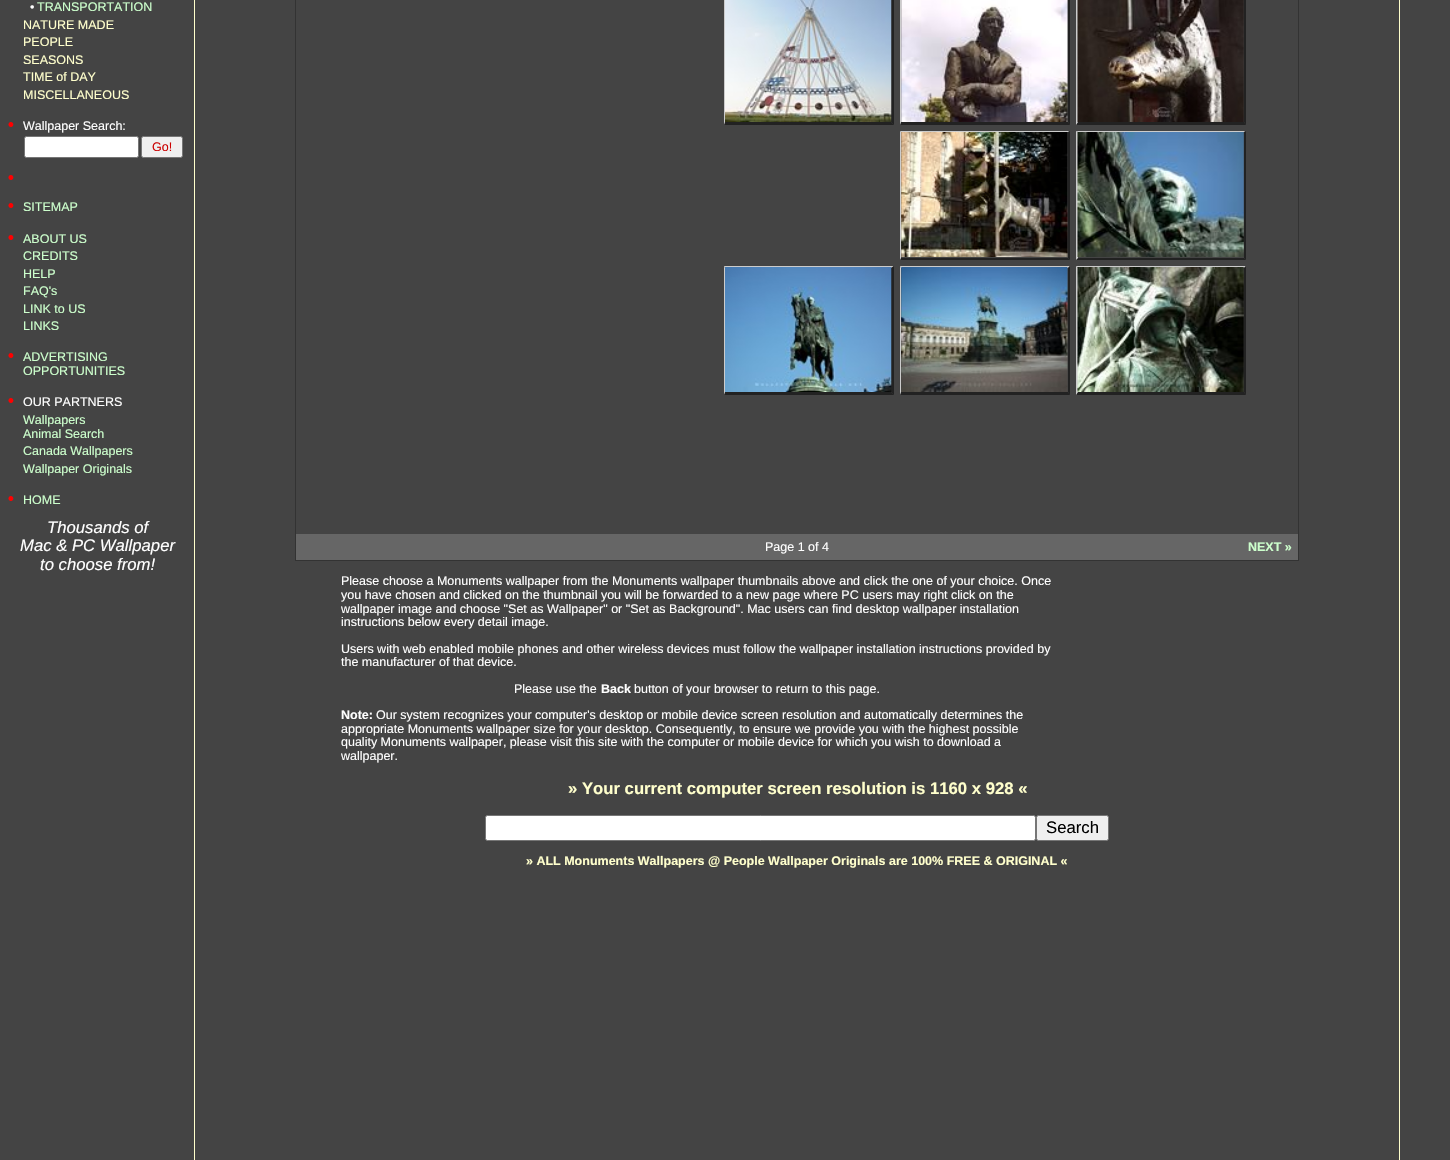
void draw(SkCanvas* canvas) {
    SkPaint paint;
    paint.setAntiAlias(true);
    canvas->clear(0xFF444444);
    SkFont font1(fontMgr->matchFamilyStyle("Liberation Sans", SkFontStyle::Normal()), 12.5f);
    font1.setSubpixel(true);
    paint.setColor(0xFFFFFFFF);
    canvas->drawString("•", 30, 11, font1, paint);
    paint.setColor(0xFFCCFFCC);
    canvas->drawString("TRANSPORTATION", 37, 11, font1, paint);
    paint.setColor(0xFFFFFFCC);
    canvas->drawString("NATURE MADE", 23, 29, font1, paint);
    canvas->drawString("PEOPLE", 23, 46, font1, paint);
    canvas->drawString("SEASONS", 23, 64, font1, paint);
    canvas->drawString("TIME of DAY", 23, 81, font1, paint);
    canvas->drawString("MISCELLANEOUS", 23, 99, font1, paint);
    SkFont font2(fontMgr->matchFamilyStyle("Liberation Sans", SkFontStyle::Bold()), 16.7f);
    font2.setSubpixel(true);
    paint.setColor(0xFFFF0000);
    canvas->drawString("•", 8, 130, font2, paint);
    paint.setColor(0xFFFFFFFF);
    canvas->drawString("Wallpaper Search:", 23, 130, font1, paint);
    canvas->drawRoundRect(SkRect::MakeXYWH(24.5f, 136.5f, 114, 21), 2, 2, paint);
    paint.setStyle(SkPaint::kStroke_Style);
    paint.setStrokeWidth(1);
    paint.setColor(0xFF767676);
    canvas->drawRoundRect(SkRect::MakeXYWH(24.5f, 136.5f, 114, 21), 2, 2, paint);
    paint.setStyle(SkPaint::kFill_Style);
    paint.setColor(0xFFEFEFEF);
    canvas->drawRoundRect(SkRect::MakeXYWH(141.5f, 136.5f, 41, 21), 2, 2, paint);
    paint.setStyle(SkPaint::kStroke_Style);
    paint.setColor(0xFF767676);
    canvas->drawRoundRect(SkRect::MakeXYWH(141.5f, 136.5f, 41, 21), 2, 2, paint);
    paint.setStyle(SkPaint::kFill_Style);
    paint.setColor(0xFFCC0000);
    canvas->drawString("Go!", 152, 151, font1, paint);
    paint.setColor(0xFFFF0000);
    canvas->drawString("•", 8, 183, font2, paint);
    canvas->drawString("•", 8, 211, font2, paint);
    paint.setColor(0xFFCCFFCC);
    canvas->drawString("SITEMAP", 23, 211, font1, paint);
    paint.setColor(0xFFFF0000);
    canvas->drawString("•", 8, 243, font2, paint);
    paint.setColor(0xFFCCFFCC);
    canvas->drawString("ABOUT US", 23, 243, font1, paint);
    canvas->drawString("CREDITS", 23, 260, font1, paint);
    canvas->drawString("HELP", 23, 278, font1, paint);
    canvas->drawString("FAQ's", 23, 295, font1, paint);
    canvas->drawString("LINK to US", 23, 313, font1, paint);
    canvas->drawString("LINKS", 23, 330, font1, paint);
    paint.setColor(0xFFFF0000);
    canvas->drawString("•", 8, 361, font2, paint);
    paint.setColor(0xFFCCFFCC);
    canvas->drawString("ADVERTISING", 23, 361, font1, paint);
    canvas->drawString("OPPORTUNITIES", 23, 375, font1, paint);
    paint.setColor(0xFFFF0000);
    canvas->drawString("•", 8, 406, font2, paint);
    paint.setColor(0xFFFFFFFF);
    canvas->drawString("OUR PARTNERS", 23, 406, font1, paint);
    paint.setColor(0xFFCCFFCC);
    canvas->drawString("Wallpapers", 23, 424, font1, paint);
    canvas->drawString("Animal Search", 23, 438, font1, paint);
    canvas->drawString("Canada Wallpapers", 23, 455, font1, paint);
    canvas->drawString("Wallpaper Originals", 23, 473, font1, paint);
    paint.setColor(0xFFFF0000);
    canvas->drawString("•", 8, 504, font2, paint);
    paint.setColor(0xFFCCFFCC);
    canvas->drawString("HOME", 23, 504, font1, paint);
    SkFont font3(fontMgr->matchFamilyStyle("Liberation Sans", SkFontStyle::Italic()), 16.7f);
    font3.setSubpixel(true);
    paint.setColor(0xFFFFFFFF);
    canvas->drawString("Thousands of", 47, 533, font3, paint);
    canvas->drawString("Mac & PC Wallpaper", 20, 551, font3, paint);
    canvas->drawString("to choose from!", 40, 570, font3, paint);
    paint.setColor(0xFFFFFFCC);
    canvas->drawRect(SkRect::MakeXYWH(194, 0, 1206, 1160), paint);
    paint.setColor(0xFF444444);
    canvas->drawRect(SkRect::MakeXYWH(195, 0, 1204, 1160), paint);
    paint.setStyle(SkPaint::kStroke_Style);
    paint.setColor(0xFF333333);
    canvas->drawRect(SkRect::MakeXYWH(295.5f, -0.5f, 1003, 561), paint);
    paint.setStyle(SkPaint::kFill_Style);
    paint.setColor(0xFF222222);
    canvas->drawPath(SkPathBuilder().moveTo(894, -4).lineTo(894, 125).lineTo(891, 122).lineTo(891, -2).close().detach(), paint);
    canvas->drawPath(SkPathBuilder().moveTo(894, 125).lineTo(724, 125).lineTo(725, 122).lineTo(891, 122).close().detach(), paint);
    paint.setColor(0xFFCCCCCC);
    canvas->drawPath(SkPathBuilder().moveTo(724, 125).lineTo(724, -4).lineTo(725, -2).lineTo(725, 122).close().detach(), paint);
    canvas->drawImageRect(SkImages::DeferredFromEncodedData(SkData::MakeFromFileName("img1.png")), SkRect::MakeXYWH(725, 0, 167, 122), SkSamplingOptions());
    paint.setColor(0xFF222222);
    canvas->drawPath(SkPathBuilder().moveTo(1070, -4).lineTo(1070, 125).lineTo(1068, 122).lineTo(1068, -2).close().detach(), paint);
    canvas->drawPath(SkPathBuilder().moveTo(1070, 125).lineTo(900, 125).lineTo(901, 122).lineTo(1068, 122).close().detach(), paint);
    paint.setColor(0xFFCCCCCC);
    canvas->drawPath(SkPathBuilder().moveTo(900, 125).lineTo(900, -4).lineTo(901, -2).lineTo(901, 122).close().detach(), paint);
    canvas->drawImageRect(SkImages::DeferredFromEncodedData(SkData::MakeFromFileName("img2.png")), SkRect::MakeXYWH(901, 0, 167, 122), SkSamplingOptions());
    paint.setColor(0xFF222222);
    canvas->drawPath(SkPathBuilder().moveTo(1246, -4).lineTo(1246, 125).lineTo(1244, 122).lineTo(1244, -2).close().detach(), paint);
    canvas->drawPath(SkPathBuilder().moveTo(1246, 125).lineTo(1076, 125).lineTo(1078, 122).lineTo(1244, 122).close().detach(), paint);
    paint.setColor(0xFFCCCCCC);
    canvas->drawPath(SkPathBuilder().moveTo(1076, 125).lineTo(1076, -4).lineTo(1078, -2).lineTo(1078, 122).close().detach(), paint);
    canvas->drawImageRect(SkImages::DeferredFromEncodedData(SkData::MakeFromFileName("img3.png")), SkRect::MakeXYWH(1077, 0, 167, 122), SkSamplingOptions());
    canvas->drawPath(SkPathBuilder().moveTo(900, 131).lineTo(1070, 131).lineTo(1068, 132).lineTo(901, 132).close().detach(), paint);
    paint.setColor(0xFF222222);
    canvas->drawPath(SkPathBuilder().moveTo(1070, 131).lineTo(1070, 260).lineTo(1068, 258).lineTo(1068, 132).close().detach(), paint);
    canvas->drawPath(SkPathBuilder().moveTo(1070, 260).lineTo(900, 260).lineTo(901, 258).lineTo(1068, 258).close().detach(), paint);
    paint.setColor(0xFFCCCCCC);
    canvas->drawPath(SkPathBuilder().moveTo(900, 260).lineTo(900, 131).lineTo(901, 132).lineTo(901, 258).close().detach(), paint);
    canvas->drawImageRect(SkImages::DeferredFromEncodedData(SkData::MakeFromFileName("img4.png")), SkRect::MakeXYWH(901, 132, 167, 125), SkSamplingOptions());
    canvas->drawPath(SkPathBuilder().moveTo(1076, 131).lineTo(1246, 131).lineTo(1244, 132).lineTo(1078, 132).close().detach(), paint);
    paint.setColor(0xFF222222);
    canvas->drawPath(SkPathBuilder().moveTo(1246, 131).lineTo(1246, 260).lineTo(1244, 258).lineTo(1244, 132).close().detach(), paint);
    canvas->drawPath(SkPathBuilder().moveTo(1246, 260).lineTo(1076, 260).lineTo(1078, 258).lineTo(1244, 258).close().detach(), paint);
    paint.setColor(0xFFCCCCCC);
    canvas->drawPath(SkPathBuilder().moveTo(1076, 260).lineTo(1076, 131).lineTo(1078, 132).lineTo(1078, 258).close().detach(), paint);
    canvas->drawImageRect(SkImages::DeferredFromEncodedData(SkData::MakeFromFileName("img5.png")), SkRect::MakeXYWH(1077, 132, 167, 125), SkSamplingOptions());
    canvas->drawPath(SkPathBuilder().moveTo(724, 266).lineTo(894, 266).lineTo(891, 268).lineTo(725, 268).close().detach(), paint);
    paint.setColor(0xFF222222);
    canvas->drawPath(SkPathBuilder().moveTo(894, 266).lineTo(894, 395).lineTo(891, 392).lineTo(891, 268).close().detach(), paint);
    canvas->drawPath(SkPathBuilder().moveTo(894, 395).lineTo(724, 395).lineTo(725, 392).lineTo(891, 392).close().detach(), paint);
    paint.setColor(0xFFCCCCCC);
    canvas->drawPath(SkPathBuilder().moveTo(724, 395).lineTo(724, 266).lineTo(725, 268).lineTo(725, 392).close().detach(), paint);
    canvas->drawImageRect(SkImages::DeferredFromEncodedData(SkData::MakeFromFileName("img6.png")), SkRect::MakeXYWH(725, 267, 167, 125), SkSamplingOptions());
    canvas->drawPath(SkPathBuilder().moveTo(900, 266).lineTo(1070, 266).lineTo(1068, 268).lineTo(901, 268).close().detach(), paint);
    paint.setColor(0xFF222222);
    canvas->drawPath(SkPathBuilder().moveTo(1070, 266).lineTo(1070, 395).lineTo(1068, 392).lineTo(1068, 268).close().detach(), paint);
    canvas->drawPath(SkPathBuilder().moveTo(1070, 395).lineTo(900, 395).lineTo(901, 392).lineTo(1068, 392).close().detach(), paint);
    paint.setColor(0xFFCCCCCC);
    canvas->drawPath(SkPathBuilder().moveTo(900, 395).lineTo(900, 266).lineTo(901, 268).lineTo(901, 392).close().detach(), paint);
    canvas->drawImageRect(SkImages::DeferredFromEncodedData(SkData::MakeFromFileName("img7.png")), SkRect::MakeXYWH(901, 267, 167, 125), SkSamplingOptions());
    canvas->drawPath(SkPathBuilder().moveTo(1076, 266).lineTo(1246, 266).lineTo(1244, 268).lineTo(1078, 268).close().detach(), paint);
    paint.setColor(0xFF222222);
    canvas->drawPath(SkPathBuilder().moveTo(1246, 266).lineTo(1246, 395).lineTo(1244, 392).lineTo(1244, 268).close().detach(), paint);
    canvas->drawPath(SkPathBuilder().moveTo(1246, 395).lineTo(1076, 395).lineTo(1078, 392).lineTo(1244, 392).close().detach(), paint);
    paint.setColor(0xFFCCCCCC);
    canvas->drawPath(SkPathBuilder().moveTo(1076, 395).lineTo(1076, 266).lineTo(1078, 268).lineTo(1078, 392).close().detach(), paint);
    canvas->drawImageRect(SkImages::DeferredFromEncodedData(SkData::MakeFromFileName("img8.png")), SkRect::MakeXYWH(1077, 267, 167, 125), SkSamplingOptions());
    paint.setColor(0xFF666666);
    canvas->drawRect(SkRect::MakeXYWH(296, 534, 1002, 26), paint);
    paint.setColor(0xFFFFFFFF);
    canvas->drawString("Page 1 of 4", 765, 551, font1, paint);
    SkFont font4(fontMgr->matchFamilyStyle("Liberation Sans", SkFontStyle::Bold()), 12.5f);
    font4.setSubpixel(true);
    paint.setColor(0xFFCCFFCC);
    canvas->drawString("NEXT »", 1248, 551, font4, paint);
    paint.setColor(0xFFFFFFFF);
    canvas->drawString("Please choose a Monuments wallpaper from the Monuments wallpaper thumbnails above and click the one of your choice. Once", 341, 585, font1, paint);
    canvas->drawString("you have chosen and clicked on the thumbnail you will be forwarded to a new page where PC users may right click on the", 341, 599, font1, paint);
    canvas->drawString("wallpaper image and choose \"Set as Wallpaper\" or \"Set as Background\". Mac users can find desktop wallpaper installation", 341, 613, font1, paint);
    canvas->drawString("instructions below every detail image.", 341, 626, font1, paint);
    canvas->drawString("Users with web enabled mobile phones and other wireless devices must follow the wallpaper installation instructions provided by", 341, 653, font1, paint);
    canvas->drawString("the manufacturer of that device.", 341, 666, font1, paint);
    canvas->drawString("Please use the", 514, 693, font1, paint);
    canvas->drawString("Back", 601, 693, font4, paint);
    canvas->drawString("button of your browser to return to this page.", 634, 693, font1, paint);
    canvas->drawString("Note:", 341, 719, font4, paint);
    canvas->drawString("Our system recognizes your computer's desktop or mobile device screen resolution and automatically determines the", 376, 719, font1, paint);
    canvas->drawString("appropriate Monuments wallpaper size for your desktop. Consequently, to ensure we provide you with the highest possible", 341, 733, font1, paint);
    canvas->drawString("quality Monuments wallpaper, please visit this site with the computer or mobile device for which you wish to download a", 341, 746, font1, paint);
    canvas->drawString("wallpaper.", 341, 760, font1, paint);
    paint.setColor(0xFFFFFFCC);
    canvas->drawString("» Your current computer screen resolution is 1160 x 928 «", 568, 794, font2, paint);
    paint.setColor(0xFFFFFFFF);
    canvas->drawRoundRect(SkRect::MakeXYWH(485.5f, 815.5f, 550, 25), 2, 2, paint);
    paint.setStyle(SkPaint::kStroke_Style);
    paint.setColor(0xFF767676);
    canvas->drawRoundRect(SkRect::MakeXYWH(485.5f, 815.5f, 550, 25), 2, 2, paint);
    paint.setStyle(SkPaint::kFill_Style);
    paint.setColor(0xFFEFEFEF);
    canvas->drawRoundRect(SkRect::MakeXYWH(1036.5f, 815.5f, 72, 25), 2, 2, paint);
    paint.setStyle(SkPaint::kStroke_Style);
    paint.setColor(0xFF767676);
    canvas->drawRoundRect(SkRect::MakeXYWH(1036.5f, 815.5f, 72, 25), 2, 2, paint);
    SkFont font5(fontMgr->matchFamilyStyle("Liberation Sans", SkFontStyle::Normal()), 16.7f);
    font5.setSubpixel(true);
    paint.setStyle(SkPaint::kFill_Style);
    paint.setColor(0xFF000000);
    canvas->drawString("Search", 1046, 833, font5, paint);
    paint.setColor(0xFFFFFFCC);
    canvas->drawString("» ALL Monuments Wallpapers @ People Wallpaper Originals are 100% FREE & ORIGINAL «", 526, 865, font4, paint);
}
